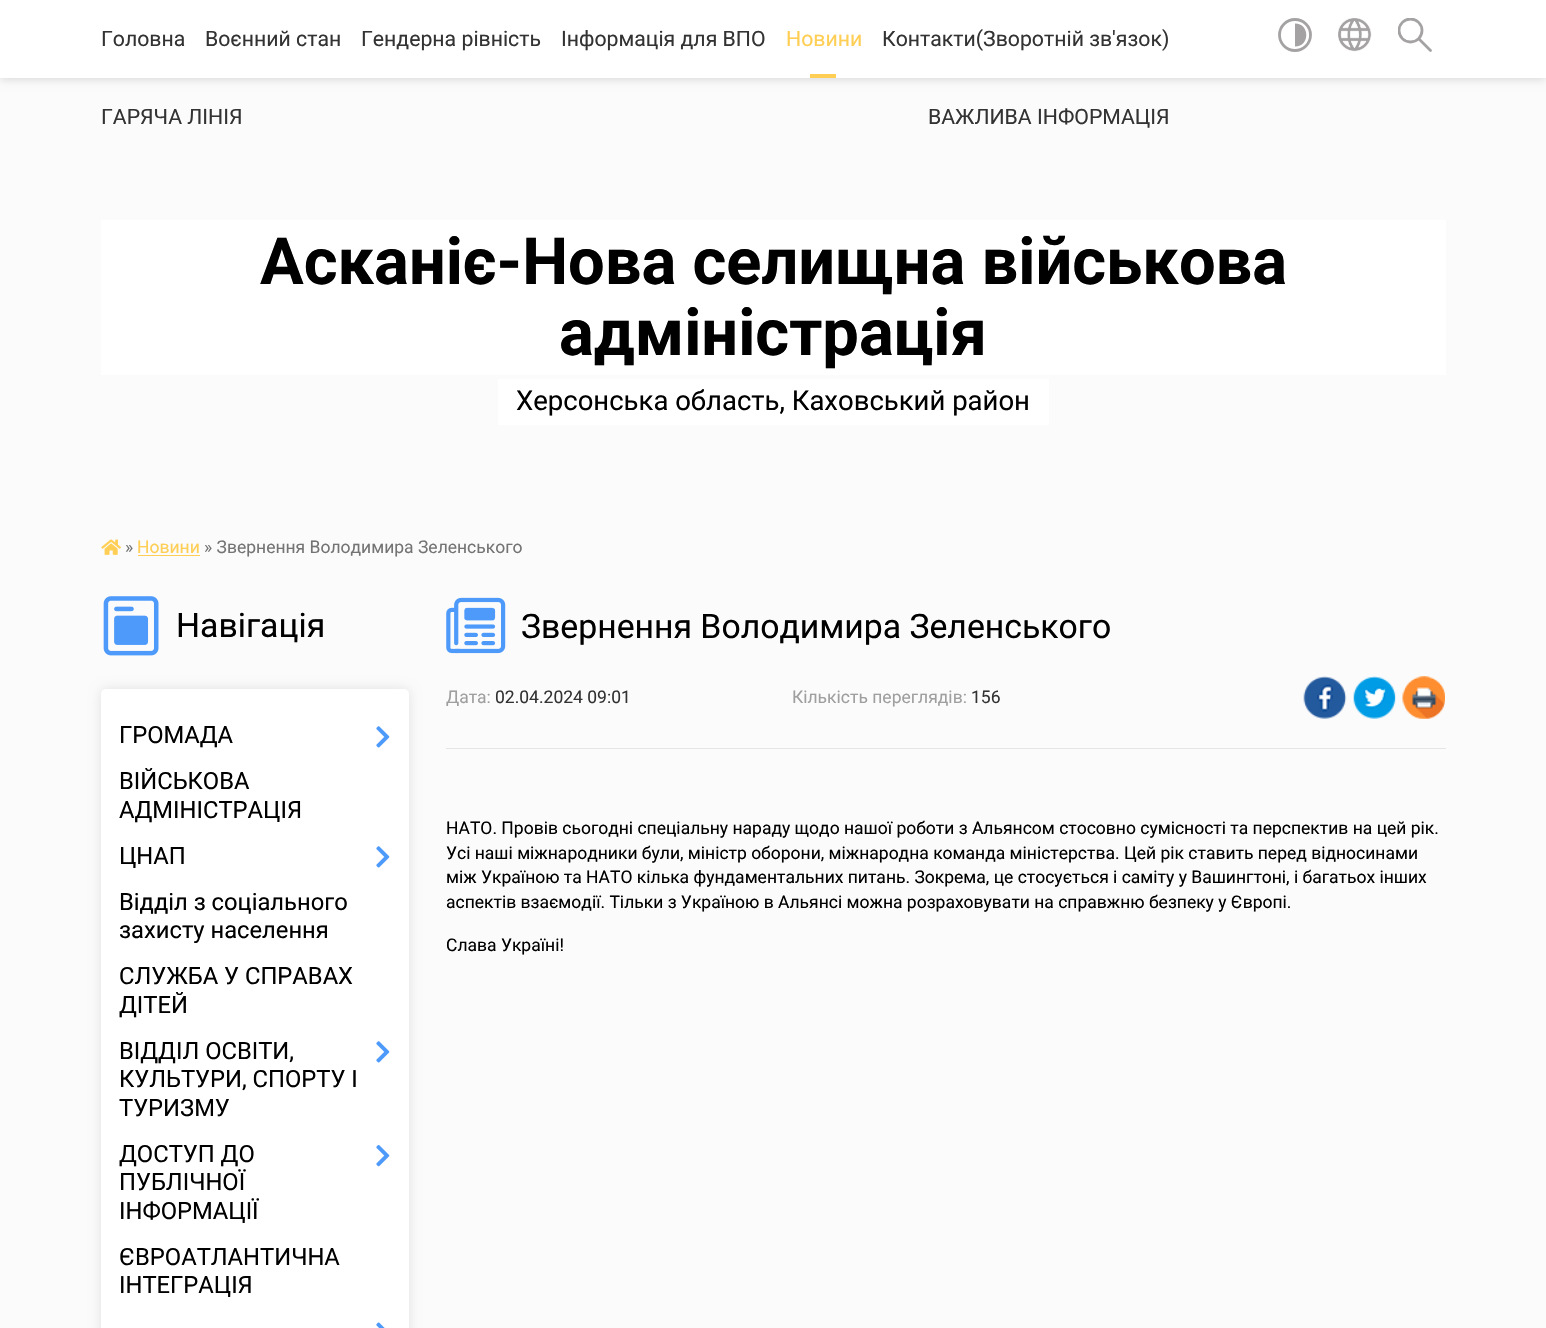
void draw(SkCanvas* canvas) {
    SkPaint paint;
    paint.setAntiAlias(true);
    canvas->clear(0xFFFBFBFB);
    paint.setColor(0x26000000);
    paint.setMaskFilter(SkMaskFilter::MakeBlur(kNormal_SkBlurStyle, 4.5f));
    canvas->drawRect(SkRect::MakeXYWH(0, 1, 1546, 78), paint);
    paint.setMaskFilter(nullptr);
    paint.setColor(0xFFFFFFFF);
    canvas->drawRect(SkRect::MakeXYWH(0, 0, 1546, 78), paint);
    SkFont font1(fontMgr->matchFamilyStyle("Roboto", SkFontStyle::Normal()), 21.25f);
    font1.setSubpixel(true);
    paint.setColor(0xFF333333);
    canvas->drawString("Головна", 101, 46, font1, paint);
    canvas->drawString("Воєнний стан", 205, 46, font1, paint);
    canvas->drawString("Гендерна рівність", 361, 46, font1, paint);
    canvas->drawString("Інформація для ВПО", 561, 46, font1, paint);
    paint.setColor(0xFFFFCE54);
    canvas->drawString("Новини", 786, 46, font1, paint);
    canvas->drawRect(SkRect::MakeXYWH(810, 74, 26, 4), paint);
    paint.setColor(0xFF333333);
    canvas->drawString("Контакти(Зворотній зв'язок)", 882, 46, font1, paint);
    canvas->drawString("ГАРЯЧА ЛІНІЯ", 101, 124, font1, paint);
    canvas->drawString("ВАЖЛИВА ІНФОРМАЦІЯ", 928, 124, font1, paint);
    paint.setStyle(SkPaint::kStroke_Style);
    paint.setStrokeWidth(2.8f);
    paint.setColor(0xFFA4A2A2);
    canvas->drawCircle(1295, 35, 15.5f, paint);
    paint.setStyle(SkPaint::kFill_Style);
    canvas->drawPath(SkPathBuilder(SkPathFillType::kEvenOdd).moveTo(1295, 23.5f).cubicTo(1310, 23.5f, 1310, 46.5f, 1295, 46.5f).close().detach(), paint);
    canvas->drawImageRect(SkImages::DeferredFromEncodedData(SkData::MakeFromFileName("img1.png")), SkRect::MakeXYWH(1338, 18, 34, 34), SkSamplingOptions());
    canvas->save();
    canvas->clipRect(SkRect::MakeXYWH(1398, 18, 35, 35));
    paint.setStyle(SkPaint::kStroke_Style);
    canvas->drawCircle(1410.5f, 30.5f, 11.5f, paint);
    canvas->restore();
    paint.setStrokeCap(SkPaint::kRound_Cap);
    paint.setStrokeJoin(SkPaint::kRound_Join);
    canvas->drawPath(SkPathBuilder().moveTo(1419, 39).lineTo(1430.5f, 50.5f).detach(), paint);
    paint.setStyle(SkPaint::kFill_Style);
    paint.setColor(0xFFFFFFFF);
    canvas->drawRect(SkRect::MakeXYWH(101, 220, 1345, 155), paint);
    SkFont font2(fontMgr->matchFamilyStyle("Roboto", SkFontStyle::Bold()), 65);
    font2.setSubpixel(true);
    paint.setColor(0xFF000000);
    canvas->drawString("Асканіє-Нова селищна військова", 260, 284, font2, paint);
    canvas->drawString("адміністрація", 559, 355, font2, paint);
    paint.setColor(0xFFFFFFFF);
    canvas->drawRect(SkRect::MakeXYWH(498, 379, 551, 46), paint);
    SkFont font3(fontMgr->matchFamilyStyle("Roboto", SkFontStyle::Normal()), 27.5f);
    font3.setSubpixel(true);
    paint.setColor(0xFF000000);
    canvas->drawString("Херсонська область, Каховський район", 516, 410, font3, paint);
    canvas->drawImageRect(SkImages::DeferredFromEncodedData(SkData::MakeFromFileName("img2.png")), SkRect::MakeXYWH(101, 539, 20, 16), SkSamplingOptions());
    SkFont font4(fontMgr->matchFamilyStyle("Roboto", SkFontStyle::Normal()), 17.5f);
    font4.setSubpixel(true);
    paint.setColor(0xFF747474);
    canvas->drawString("»", 125, 553, font4, paint);
    paint.setColor(0xFFFFCE54);
    canvas->drawString("Новини", 137, 553, font4, paint);
    canvas->drawRect(SkRect::MakeXYWH(138, 555, 62, 1), paint);
    paint.setColor(0xFF747474);
    canvas->drawString("» Звернення Володимира Зеленського", 204, 553, font4, paint);
    canvas->drawImageRect(SkImages::DeferredFromEncodedData(SkData::MakeFromFileName("img3.png")), SkRect::MakeXYWH(103, 596, 56, 60), SkSamplingOptions());
    SkFont font5(fontMgr->matchFamilyStyle("Roboto", SkFontStyle::Normal()), 33.75f);
    font5.setSubpixel(true);
    paint.setColor(0xFF000000);
    canvas->drawString("Навігація", 176, 637, font5, paint);
    paint.setColor(0x1A000000);
    paint.setMaskFilter(SkMaskFilter::MakeBlur(kNormal_SkBlurStyle, 6));
    canvas->drawRoundRect(SkRect::MakeXYWH(101, 689, 308, 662), 5, 5, paint);
    paint.setMaskFilter(nullptr);
    paint.setColor(0xFFFFFFFF);
    canvas->drawRoundRect(SkRect::MakeXYWH(101, 689, 308, 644), 5, 5, paint);
    SkFont font6(fontMgr->matchFamilyStyle("Roboto", SkFontStyle::Normal()), 23.75f);
    font6.setSubpixel(true);
    paint.setColor(0xFF000000);
    canvas->drawString("ГРОМАДА", 119, 743, font6, paint);
    canvas->drawImageRect(SkImages::DeferredFromEncodedData(SkData::MakeFromFileName("img4.png")), SkRect::MakeXYWH(376, 726, 14, 22), SkSamplingOptions());
    canvas->drawString("ВІЙСЬКОВА", 119, 789, font6, paint);
    canvas->drawString("АДМІНІСТРАЦІЯ", 119, 818, font6, paint);
    canvas->drawString("ЦНАП", 119, 864, font6, paint);
    canvas->drawImageRect(SkImages::DeferredFromEncodedData(SkData::MakeFromFileName("img4.png")), SkRect::MakeXYWH(376, 846, 14, 22), SkSamplingOptions());
    canvas->drawString("Відділ з соціального", 119, 910, font6, paint);
    canvas->drawString("захисту населення", 119, 938, font6, paint);
    canvas->drawString("СЛУЖБА У СПРАВАХ", 119, 984, font6, paint);
    canvas->drawString("ДІТЕЙ", 119, 1013, font6, paint);
    canvas->drawString("ВІДДІЛ ОСВІТИ,", 119, 1059, font6, paint);
    canvas->drawString("КУЛЬТУРИ, СПОРТУ І", 119, 1087, font6, paint);
    canvas->drawString("ТУРИЗМУ", 119, 1116, font6, paint);
    canvas->drawImageRect(SkImages::DeferredFromEncodedData(SkData::MakeFromFileName("img4.png")), SkRect::MakeXYWH(376, 1041, 14, 22), SkSamplingOptions());
    canvas->drawString("ДОСТУП ДО", 119, 1162, font6, paint);
    canvas->drawString("ПУБЛІЧНОЇ", 119, 1190, font6, paint);
    canvas->drawString("ІНФОРМАЦІЇ", 119, 1219, font6, paint);
    canvas->drawImageRect(SkImages::DeferredFromEncodedData(SkData::MakeFromFileName("img5.png")), SkRect::MakeXYWH(376, 1145, 14, 22), SkSamplingOptions());
    canvas->drawString("ЄВРОАТЛАНТИЧНА", 119, 1265, font6, paint);
    canvas->drawString("ІНТЕГРАЦІЯ", 119, 1293, font6, paint);
    canvas->drawImageRect(SkImages::DeferredFromEncodedData(SkData::MakeFromFileName("img6.png")), SkRect::MakeXYWH(376, 1322, 9, 6), SkSamplingOptions());
    canvas->drawImageRect(SkImages::DeferredFromEncodedData(SkData::MakeFromFileName("img7.png")), SkRect::MakeXYWH(446, 597, 60, 57), SkSamplingOptions());
    canvas->drawString("Звернення Володимира Зеленського", 521, 638, font5, paint);
    paint.setColor(0xFF9F9F9F);
    canvas->drawString("Дата:", 446, 703, font4, paint);
    paint.setColor(0xFF333333);
    canvas->drawString("02.04.2024 09:01", 495, 703, font4, paint);
    paint.setColor(0xFF9F9F9F);
    canvas->drawString("Кількість переглядів:", 792, 703, font4, paint);
    paint.setColor(0xFF333333);
    canvas->drawString("156", 971, 703, font4, paint);
    canvas->drawImageRect(SkImages::DeferredFromEncodedData(SkData::MakeFromFileName("img8.png")), SkRect::MakeXYWH(1303, 676, 44, 43), SkSamplingOptions());
    canvas->drawImageRect(SkImages::DeferredFromEncodedData(SkData::MakeFromFileName("img9.png")), SkRect::MakeXYWH(1353, 676, 43, 43), SkSamplingOptions());
    canvas->drawImageRect(SkImages::DeferredFromEncodedData(SkData::MakeFromFileName("img10.png")), SkRect::MakeXYWH(1402, 676, 43, 43), SkSamplingOptions());
    paint.setColor(0xFFE5E5E5);
    canvas->drawRect(SkRect::MakeXYWH(446, 748, 1000, 1), paint);
    paint.setColor(0xFF000000);
    canvas->drawString("НАТО. Провів сьогодні спеціальну нараду щодо нашої роботи з Альянсом стосовно сумісності та перспектив на цей рік.", 446, 834, font4, paint);
    canvas->drawString("Усі наші міжнародники були, міністр оборони, міжнародна команда міністерства. Цей рік ставить перед відносинами", 446, 859, font4, paint);
    canvas->drawString("між Україною та НАТО кілька фундаментальних питань. Зокрема, це стосується і саміту у Вашингтоні, і багатьох інших", 446, 883, font4, paint);
    canvas->drawString("аспектів взаємодії. Тільки з Україною в Альянсі можна розраховувати на справжню безпеку у Європі.", 446, 908, font4, paint);
    canvas->drawString("Слава Україні!", 446, 951, font4, paint);
}
